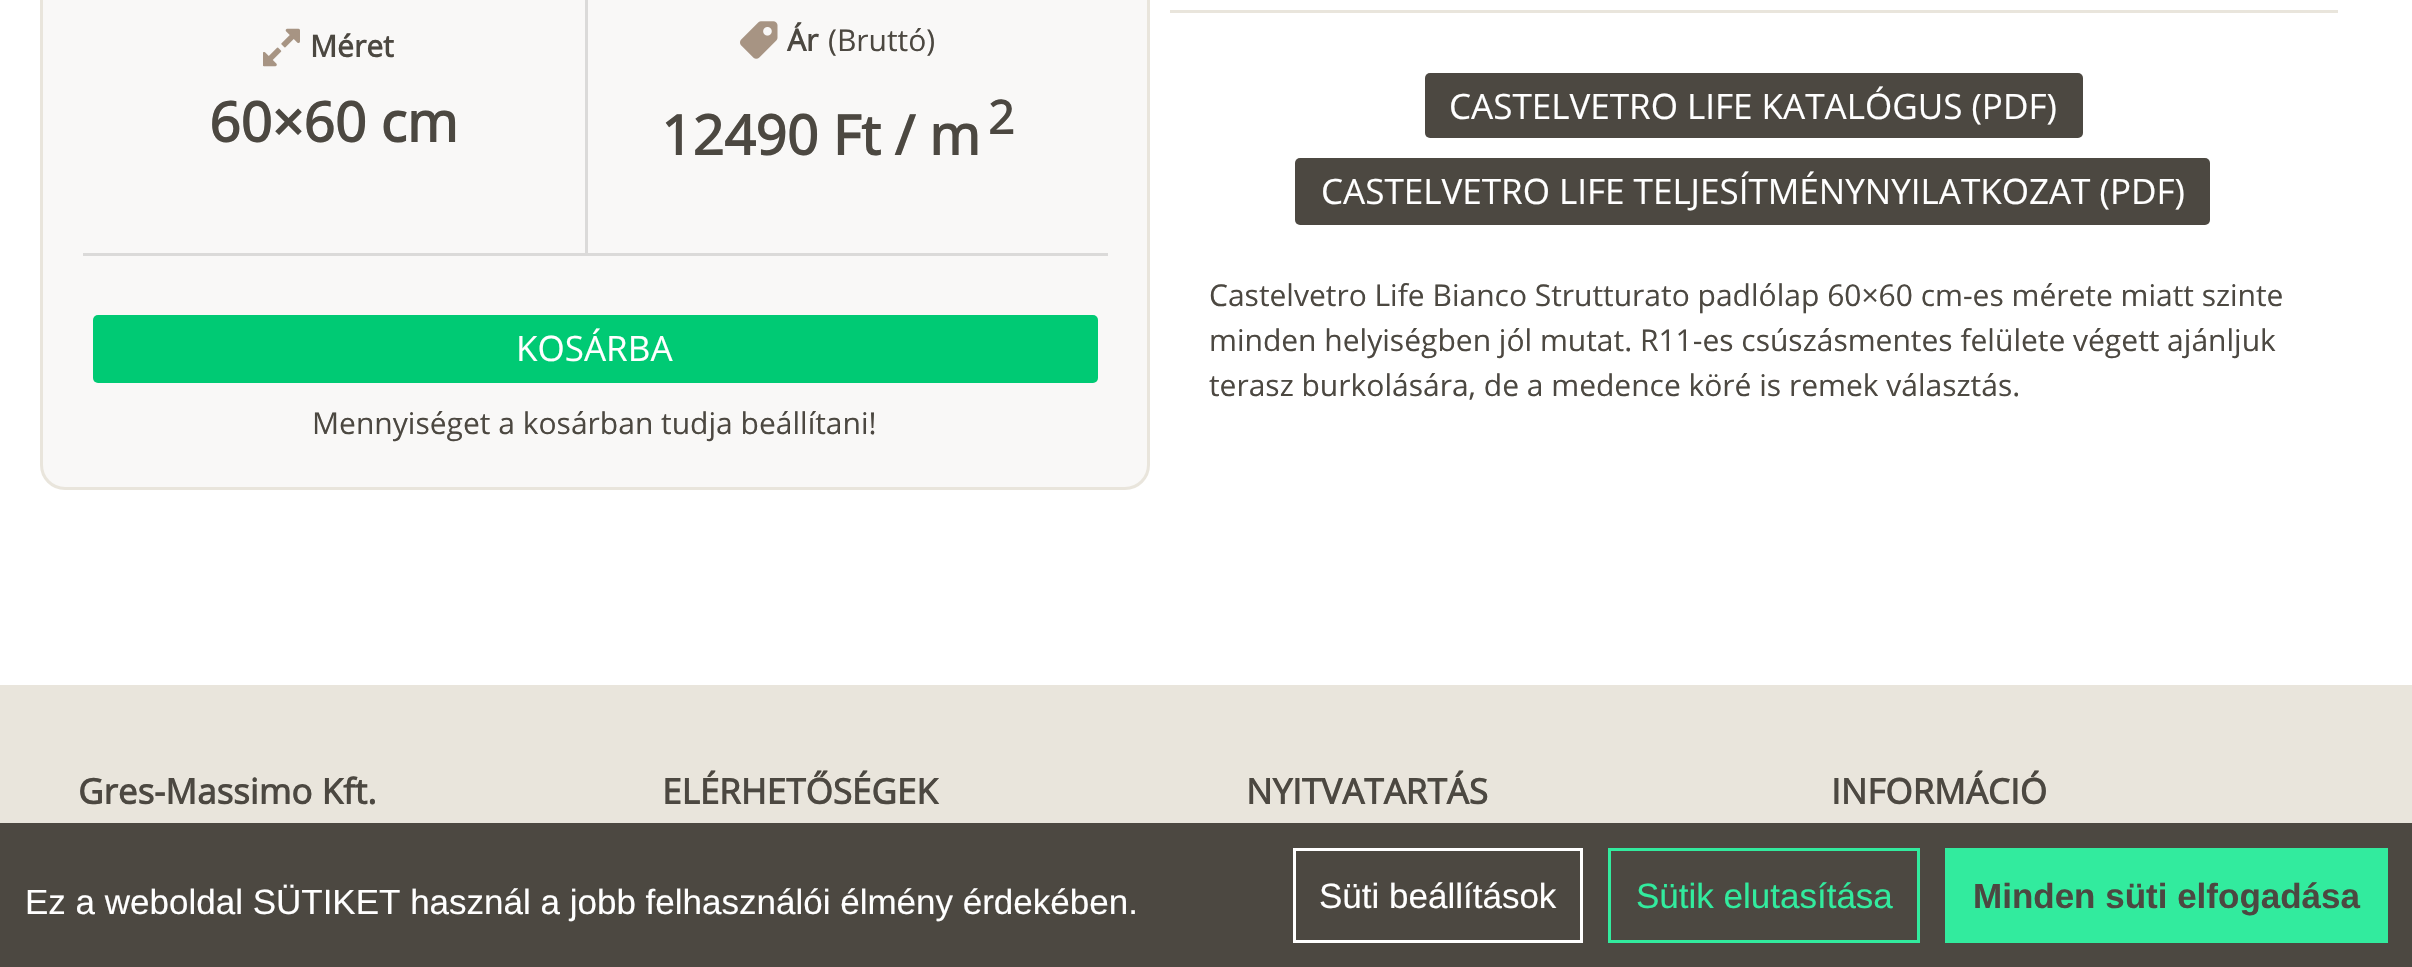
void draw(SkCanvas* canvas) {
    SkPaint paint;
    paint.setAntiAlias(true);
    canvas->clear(0xFFFFFFFF);
    paint.setColor(0xFFF9F8F7);
    canvas->drawRoundRect(SkRect::MakeXYWH(41.5f, -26.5f, 1107, 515), 23.5f, 23.5f, paint);
    paint.setStyle(SkPaint::kStroke_Style);
    paint.setStrokeWidth(3);
    paint.setColor(0xFFE9E5DC);
    canvas->drawRoundRect(SkRect::MakeXYWH(41.5f, -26.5f, 1107, 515), 23.5f, 23.5f, paint);
    canvas->drawImageRect(SkImages::DeferredFromEncodedData(SkData::MakeFromFileName("img1.png")), SkRect::MakeXYWH(263, 28, 37, 39), SkSamplingOptions());
    SkFont font1(fontMgr->matchFamilyStyle("Open Sans", SkFontStyle::Bold()), 30);
    font1.setSubpixel(true);
    paint.setStyle(SkPaint::kFill_Style);
    paint.setColor(0xFF4C4841);
    canvas->drawString("Méret", 310, 57, font1, paint);
    SkFont font2(fontMgr->matchFamilyStyle("Open Sans", SkFontStyle::Bold()), 55);
    font2.setSubpixel(true);
    canvas->drawString("60×60 cm", 209, 142, font2, paint);
    paint.setColor(0xFFDBDAD9);
    canvas->drawRect(SkRect::MakeXYWH(585, 0, 3, 253), paint);
    canvas->drawImageRect(SkImages::DeferredFromEncodedData(SkData::MakeFromFileName("img2.png")), SkRect::MakeXYWH(740, 21, 38, 38), SkSamplingOptions());
    paint.setColor(0xFF4C4841);
    canvas->drawString("Ár", 787, 51, font1, paint);
    SkFont font3(fontMgr->matchFamilyStyle("Open Sans", SkFontStyle::Normal()), 30);
    font3.setSubpixel(true);
    canvas->drawString("(Bruttó)", 828, 51, font3, paint);
    canvas->drawString("12 490 Ft / m", 661, 155, font2, paint);
    SkFont font4(fontMgr->matchFamilyStyle("Open Sans", SkFontStyle::Bold()), 46);
    font4.setSubpixel(true);
    canvas->drawString("2", 988, 134, font4, paint);
    paint.setColor(0xFFDBDAD9);
    canvas->drawRect(SkRect::MakeXYWH(83, 253, 1025, 3), paint);
    paint.setColor(0xFF00CA74);
    canvas->drawRoundRect(SkRect::MakeXYWH(93, 315, 1005, 68), 5, 5, paint);
    SkFont font5(fontMgr->matchFamilyStyle("Open Sans", SkFontStyle::Normal()), 35);
    font5.setSubpixel(true);
    paint.setColor(0xFFFFFFFF);
    canvas->drawString("KOSÁRBA", 516, 361, font5, paint);
    paint.setColor(0xFF4C4841);
    canvas->drawString("Mennyiséget a kosárban tudja beállítani!", 312, 434, font3, paint);
    paint.setColor(0xFFE9E5DC);
    canvas->drawRect(SkRect::MakeXYWH(1170, 10, 1168, 3), paint);
    paint.setColor(0xFF4C4841);
    canvas->drawRoundRect(SkRect::MakeXYWH(1425, 73, 658, 65), 5, 5, paint);
    paint.setColor(0xFFFFFFFF);
    canvas->drawString("CASTELVETRO LIFE KATALÓGUS (PDF)", 1449, 119, font5, paint);
    paint.setColor(0xFF4C4841);
    canvas->drawRoundRect(SkRect::MakeXYWH(1295, 158, 915, 67), 5, 5, paint);
    paint.setColor(0xFFFFFFFF);
    canvas->drawString("CASTELVETRO LIFE TELJESÍTMÉNYNYILATKOZAT (PDF)", 1321, 204, font5, paint);
    paint.setColor(0xFF4C4841);
    canvas->drawString("Castelvetro Life Bianco Strutturato padlólap 60×60 cm-es mérete miatt szinte", 1209, 306, font3, paint);
    canvas->drawString("minden helyiségben jól mutat. R11-es csúszásmentes felülete végett ajánljuk", 1209, 351, font3, paint);
    canvas->drawString("terasz burkolására, de a medence köré is remek választás.", 1209, 396, font3, paint);
    paint.setColor(0xFFE9E5DC);
    canvas->drawRect(SkRect::MakeXYWH(0, 685, 2412, 138), paint);
    SkFont font6(fontMgr->matchFamilyStyle("Open Sans", SkFontStyle::Bold()), 35);
    font6.setSubpixel(true);
    paint.setColor(0xFF4C4841);
    canvas->drawString("Gres-Massimo Kft.", 78, 804, font6, paint);
    canvas->drawString("ELÉRHETŐSÉGEK", 662, 804, font6, paint);
    canvas->drawString("NYITVATARTÁS", 1246, 804, font6, paint);
    canvas->drawString("INFORMÁCIÓ", 1831, 804, font6, paint);
    canvas->drawRect(SkRect::MakeXYWH(0, 823, 2412, 144), paint);
    SkFont font7(fontMgr->matchFamilyStyle("Liberation Sans", SkFontStyle::Normal()), 35);
    font7.setSubpixel(true);
    paint.setColor(0xFFFFFFFF);
    canvas->drawString("Ez a weboldal SÜTIKET használ a jobb felhasználói élmény érdekében.", 25, 914, font7, paint);
    paint.setStyle(SkPaint::kStroke_Style);
    canvas->drawRect(SkRect::MakeXYWH(1294.5f, 849.5f, 287, 92), paint);
    paint.setStyle(SkPaint::kFill_Style);
    canvas->drawString("Süti beállítások", 1319, 908, font7, paint);
    paint.setStyle(SkPaint::kStroke_Style);
    paint.setColor(0xFF32EB9E);
    canvas->drawRect(SkRect::MakeXYWH(1609.5f, 849.5f, 309, 92), paint);
    paint.setStyle(SkPaint::kFill_Style);
    canvas->drawString("Sütik elutasítása", 1636, 908, font7, paint);
    canvas->drawRect(SkRect::MakeXYWH(1945, 848, 443, 95), paint);
    SkFont font8(fontMgr->matchFamilyStyle("Liberation Sans", SkFontStyle::Bold()), 35);
    font8.setSubpixel(true);
    paint.setColor(0xFF4C4841);
    canvas->drawString("Minden süti elfogadása", 1973, 908, font8, paint);
}
